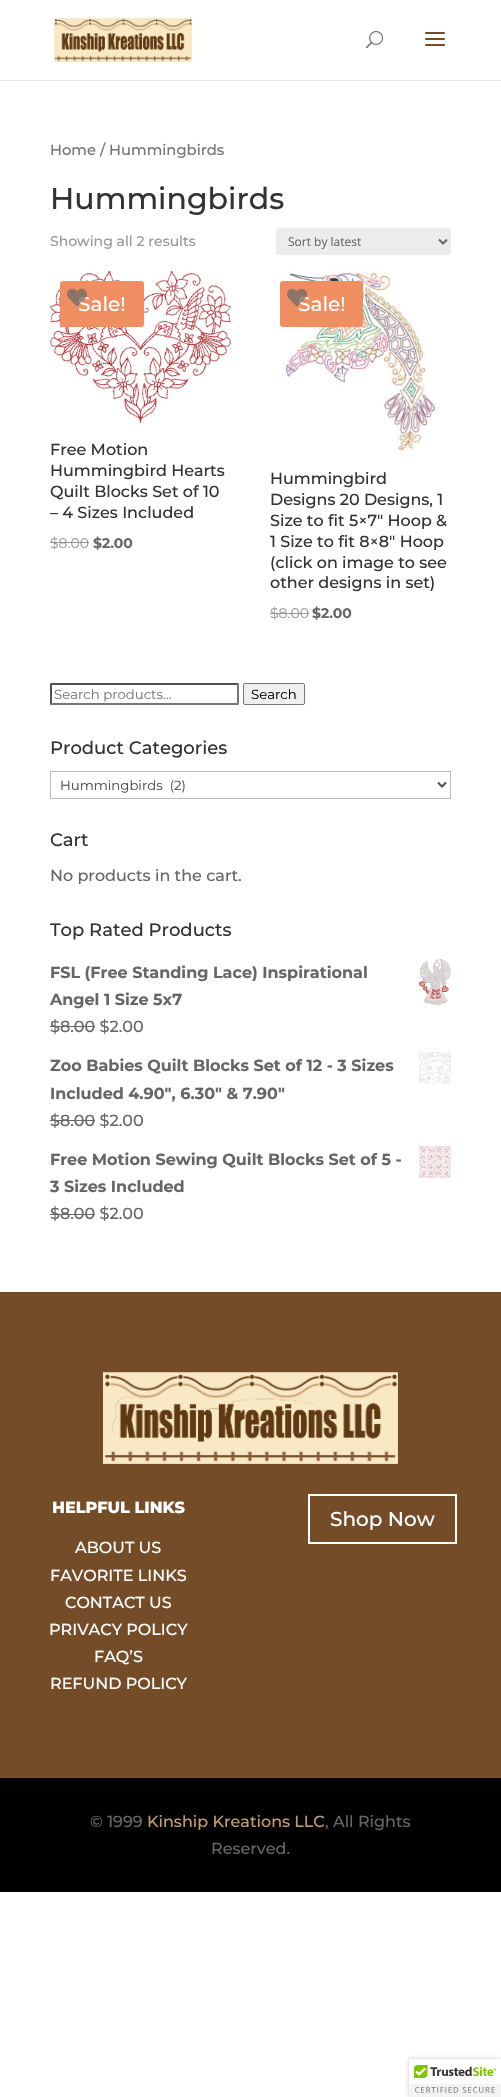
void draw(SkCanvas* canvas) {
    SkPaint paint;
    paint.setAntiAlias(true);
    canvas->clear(0xFFFFFFFF);
    paint.setColor(0xFFE6E6E6);
    canvas->drawRect(SkRect::MakeXYWH(0, 80, 501, 1), paint);
    canvas->drawImageRect(SkImages::DeferredFromEncodedData(SkData::MakeFromFileName("img1.png")), SkRect::MakeXYWH(54, 18, 138, 44), SkSamplingOptions());
    canvas->drawImageRect(SkImages::DeferredFromEncodedData(SkData::MakeFromFileName("img2.png")), SkRect::MakeXYWH(366, 31, 17, 18), SkSamplingOptions());
    canvas->drawImageRect(SkImages::DeferredFromEncodedData(SkData::MakeFromFileName("img3.png")), SkRect::MakeXYWH(425, 32, 20, 14), SkSamplingOptions());
    SkFont font1(fontMgr->matchFamilyStyle("Montserrat", SkFontStyle(100, SkFontStyle::kNormal_Width, SkFontStyle::kUpright_Slant)), 14.75f);
    font1.setSubpixel(true);
    paint.setColor(0xFF767676);
    canvas->drawString("Home / Hummingbirds", 50, 155, font1, paint);
    SkFont font2(fontMgr->matchFamilyStyle("Montserrat", SkFontStyle(100, SkFontStyle::kNormal_Width, SkFontStyle::kUpright_Slant)), 30);
    font2.setSubpixel(true);
    paint.setColor(0xFF333333);
    canvas->drawString("Hummingbirds", 50, 209, font2, paint);
    SkFont font3(fontMgr->matchFamilyStyle("Montserrat", SkFontStyle(100, SkFontStyle::kNormal_Width, SkFontStyle::kUpright_Slant)), 14);
    font3.setSubpixel(true);
    paint.setColor(0xFF999999);
    canvas->drawString("Showing all 2 results", 50, 246, font3, paint);
    paint.setColor(0xFFECECEC);
    canvas->drawRoundRect(SkRect::MakeXYWH(276, 228, 175, 27), 3, 3, paint);
    paint.setStyle(SkPaint::kStroke_Style);
    paint.setStrokeWidth(2);
    paint.setColor(0xFF666666);
    canvas->drawPath(SkPathBuilder().moveTo(439, 239.5f).lineTo(443, 243.5f).lineTo(447, 239.5f).detach(), paint);
    SkFont font4(fontMgr->matchFamilyStyle("Open Sans", SkFontStyle::Normal()), 12);
    font4.setSubpixel(true);
    paint.setStyle(SkPaint::kFill_Style);
    canvas->drawString("Sort by latest", 288, 246, font4, paint);
    canvas->drawImageRect(SkImages::DeferredFromEncodedData(SkData::MakeFromFileName("img5.png")), SkRect::MakeXYWH(50, 271, 181, 152), SkSamplingOptions());
    paint.setColor(0xFFEF8F61);
    canvas->drawRoundRect(SkRect::MakeXYWH(60, 281, 84, 46), 3, 3, paint);
    SkFont font5(fontMgr->matchFamilyStyle("Montserrat", SkFontStyle(100, SkFontStyle::kNormal_Width, SkFontStyle::kUpright_Slant)), 20);
    font5.setSubpixel(true);
    paint.setColor(0xFFFFFFFF);
    canvas->drawString("Sale!", 78, 311, font5, paint);
    canvas->drawImageRect(SkImages::DeferredFromEncodedData(SkData::MakeFromFileName("img4.png")), SkRect::MakeXYWH(67, 288, 20, 19), SkSamplingOptions());
    SkFont font6(fontMgr->matchFamilyStyle("Montserrat", SkFontStyle(100, SkFontStyle::kNormal_Width, SkFontStyle::kUpright_Slant)), 16);
    font6.setSubpixel(true);
    paint.setColor(0xFF333333);
    canvas->drawString("Free Motion", 50, 455, font6, paint);
    canvas->drawString("Hummingbird Hearts", 50, 476, font6, paint);
    canvas->drawString("Quilt Blocks Set of 10", 50, 497, font6, paint);
    canvas->drawString("– 4 Sizes Included", 50, 518, font6, paint);
    SkFont font7(fontMgr->matchFamilyStyle("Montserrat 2", SkFontStyle(100, SkFontStyle::kNormal_Width, SkFontStyle::kUpright_Slant)), 14);
    font7.setSubpixel(true);
    paint.setColor(0xFF999999);
    canvas->drawString("$8.00", 50, 548, font7, paint);
    paint.setColor(0xFF949494);
    canvas->drawRect(SkRect::MakeXYWH(50, 542, 39, 1), paint);
    SkFont font8(fontMgr->matchFamilyStyle("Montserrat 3", SkFontStyle(100, SkFontStyle::kNormal_Width, SkFontStyle::kUpright_Slant)), 14);
    font8.setSubpixel(true);
    paint.setColor(0xFF666666);
    canvas->drawString("$2.00", 93, 548, font8, paint);
    canvas->drawImageRect(SkImages::DeferredFromEncodedData(SkData::MakeFromFileName("img7.png")), SkRect::MakeXYWH(282, 271, 156, 181), SkSamplingOptions());
    paint.setColor(0xFFEF8F61);
    canvas->drawRoundRect(SkRect::MakeXYWH(280, 281, 83, 46), 3, 3, paint);
    paint.setColor(0xFFFFFFFF);
    canvas->drawString("Sale!", 298, 311, font5, paint);
    canvas->drawImageRect(SkImages::DeferredFromEncodedData(SkData::MakeFromFileName("img6.png")), SkRect::MakeXYWH(287, 288, 20, 19), SkSamplingOptions());
    paint.setColor(0xFF333333);
    canvas->drawString("Hummingbird", 270, 484, font6, paint);
    canvas->drawString("Designs 20 Designs, 1", 270, 505, font6, paint);
    canvas->drawString("Size to fit 5×7″ Hoop &", 270, 526, font6, paint);
    canvas->drawString("1 Size to fit 8×8″ Hoop", 270, 547, font6, paint);
    canvas->drawString("(click on image to see", 270, 568, font6, paint);
    canvas->drawString("other designs in set)", 270, 588, font6, paint);
    paint.setColor(0xFF999999);
    canvas->drawString("$8.00", 270, 618, font7, paint);
    paint.setColor(0xFF949494);
    canvas->drawRect(SkRect::MakeXYWH(270, 613, 39, 1), paint);
    paint.setColor(0xFF666666);
    canvas->drawString("$2.00", 312, 618, font8, paint);
    paint.setColor(0xFF4F4F4F);
    canvas->drawPath(SkPathBuilder().moveTo(50, 683).lineTo(239, 683).lineTo(237, 685).lineTo(52, 685).close().detach(), paint);
    paint.setColor(0xFF767676);
    canvas->drawPath(SkPathBuilder().moveTo(239, 683).lineTo(239, 705).lineTo(237, 703).lineTo(237, 685).close().detach(), paint);
    canvas->drawPath(SkPathBuilder().moveTo(239, 705).lineTo(50, 705).lineTo(52, 703).lineTo(237, 703).close().detach(), paint);
    paint.setColor(0xFF4F4F4F);
    canvas->drawPath(SkPathBuilder().moveTo(50, 705).lineTo(50, 683).lineTo(52, 685).lineTo(52, 703).close().detach(), paint);
    SkFont font9(fontMgr->matchFamilyStyle("Montserrat 2", SkFontStyle(100, SkFontStyle::kNormal_Width, SkFontStyle::kUpright_Slant)), 13.25f);
    font9.setSubpixel(true);
    paint.setColor(0xFF767676);
    canvas->drawString("Search products…", 54, 699, font9, paint);
    paint.setColor(0xFFEFEFEF);
    canvas->drawRoundRect(SkRect::MakeXYWH(243.5f, 683.5f, 61, 21), 1.5f, 1.5f, paint);
    paint.setStyle(SkPaint::kStroke_Style);
    paint.setStrokeWidth(1);
    paint.setColor(0xFF767676);
    canvas->drawRoundRect(SkRect::MakeXYWH(243.5f, 683.5f, 61, 21), 1.5f, 1.5f, paint);
    paint.setStyle(SkPaint::kFill_Style);
    paint.setColor(0xFF000000);
    canvas->drawString("Search", 251, 699, font9, paint);
    SkFont font10(fontMgr->matchFamilyStyle("Montserrat", SkFontStyle(100, SkFontStyle::kNormal_Width, SkFontStyle::kUpright_Slant)), 18);
    font10.setSubpixel(true);
    paint.setColor(0xFF333333);
    canvas->drawString("Product Categories", 50, 754, font10, paint);
    paint.setStyle(SkPaint::kStroke_Style);
    paint.setColor(0xFFBBBBBB);
    canvas->drawRect(SkRect::MakeXYWH(50.5f, 771.5f, 400, 27), paint);
    paint.setStrokeWidth(2);
    paint.setColor(0xFF4E4E4E);
    canvas->drawPath(SkPathBuilder().moveTo(438, 782.5f).lineTo(442, 786.5f).lineTo(446, 782.5f).detach(), paint);
    paint.setStyle(SkPaint::kFill_Style);
    canvas->drawString("Hummingbirds  (2)", 60, 790, font9, paint);
    paint.setColor(0xFF333333);
    canvas->drawString("Cart", 50, 846, font10, paint);
    paint.setColor(0xFF666666);
    canvas->drawString("No products in the cart.", 50, 881, font6, paint);
    paint.setColor(0xFF333333);
    canvas->drawString("Top Rated Products", 50, 936, font10, paint);
    SkFont font11(fontMgr->matchFamilyStyle("Montserrat 3", SkFontStyle(100, SkFontStyle::kNormal_Width, SkFontStyle::kUpright_Slant)), 16);
    font11.setSubpixel(true);
    paint.setColor(0xFF666666);
    canvas->drawString("FSL (Free Standing Lace) Inspirational", 50, 978, font11, paint);
    canvas->drawImageRect(SkImages::DeferredFromEncodedData(SkData::MakeFromFileName("img8.png")), SkRect::MakeXYWH(419, 959, 32, 46), SkSamplingOptions());
    canvas->drawString("Angel 1 Size 5x7", 50, 1005, font11, paint);
    canvas->drawString("$8.00 $2.00", 50, 1032, font6, paint);
    canvas->drawRect(SkRect::MakeXYWH(50, 1026, 45, 1), paint);
    canvas->drawString("Zoo Babies Quilt Blocks Set of 12 - 3 Sizes", 50, 1071, font11, paint);
    canvas->drawImageRect(SkImages::DeferredFromEncodedData(SkData::MakeFromFileName("img9.png")), SkRect::MakeXYWH(419, 1052, 32, 32), SkSamplingOptions());
    canvas->drawString("Included 4.90\", 6.30\" & 7.90\"", 50, 1099, font11, paint);
    canvas->drawString("$8.00 $2.00", 50, 1126, font6, paint);
    canvas->drawRect(SkRect::MakeXYWH(50, 1120, 45, 1), paint);
    canvas->drawString("Free Motion Sewing Quilt Blocks Set of 5 -", 50, 1165, font11, paint);
    canvas->drawImageRect(SkImages::DeferredFromEncodedData(SkData::MakeFromFileName("img10.png")), SkRect::MakeXYWH(419, 1146, 32, 32), SkSamplingOptions());
    canvas->drawString("3 Sizes Included", 50, 1192, font11, paint);
    canvas->drawString("$8.00 $2.00", 50, 1219, font6, paint);
    canvas->drawRect(SkRect::MakeXYWH(50, 1214, 45, 1), paint);
    paint.setColor(0xFF754C28);
    canvas->drawRect(SkRect::MakeXYWH(0, 1292, 501, 486), paint);
    canvas->drawImageRect(SkImages::DeferredFromEncodedData(SkData::MakeFromFileName("img11.png")), SkRect::MakeXYWH(103, 1372, 295, 92), SkSamplingOptions());
    SkFont font12(fontMgr->matchFamilyStyle("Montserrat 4", SkFontStyle(100, SkFontStyle::kNormal_Width, SkFontStyle::kUpright_Slant)), 16);
    font12.setSubpixel(true);
    paint.setColor(0xFFFFFFFF);
    canvas->drawString("HELPFUL LINKS", 52, 1513, font12, paint);
    canvas->drawString("ABOUT US", 75, 1553, font6, paint);
    canvas->drawString("FAVORITE LINKS", 50, 1581, font6, paint);
    canvas->drawString("CONTACT US", 65, 1608, font6, paint);
    canvas->drawString("PRIVACY POLICY", 49, 1635, font6, paint);
    canvas->drawString("FAQ’S", 94, 1662, font6, paint);
    canvas->drawString("REFUND POLICY", 50, 1689, font6, paint);
    paint.setStyle(SkPaint::kStroke_Style);
    canvas->drawRect(SkRect::MakeXYWH(309, 1495, 147, 48), paint);
    paint.setStyle(SkPaint::kFill_Style);
    canvas->drawString("Shop Now", 330, 1526, font5, paint);
    paint.setColor(0xFF000000);
    canvas->drawRect(SkRect::MakeXYWH(0, 1778, 501, 114), paint);
    paint.setColor(0xFF666666);
    canvas->drawString("© 1999", 90, 1827, font6, paint);
    paint.setColor(0xFFC49D6C);
    canvas->drawString("Kinship Kreations LLC", 147, 1827, font6, paint);
    paint.setColor(0xFF666666);
    canvas->drawString(", All Rights", 325, 1827, font6, paint);
    canvas->drawString("Reserved.", 211, 1854, font6, paint);
    paint.setColor(0x33000000);
    paint.setMaskFilter(SkMaskFilter::MakeBlur(kNormal_SkBlurStyle, 2.5f));
    canvas->drawRoundRect(SkRect::MakeXYWH(409, 2059, 92, 38), 2, 2, paint);
    paint.setMaskFilter(nullptr);
    paint.setColor(0xFFFFFFFF);
    canvas->drawPath(SkPathBuilder().moveTo(411, 2059).lineTo(501, 2059).lineTo(501, 2097).lineTo(409, 2097).lineTo(409, 2061).cubicTo(409, 2060, 410, 2059, 411, 2059).close().detach(), paint);
    canvas->drawImageRect(SkImages::DeferredFromEncodedData(SkData::MakeFromFileName("img12.png")), SkRect::MakeXYWH(409, 2059, 92, 38), SkSamplingOptions());
}
